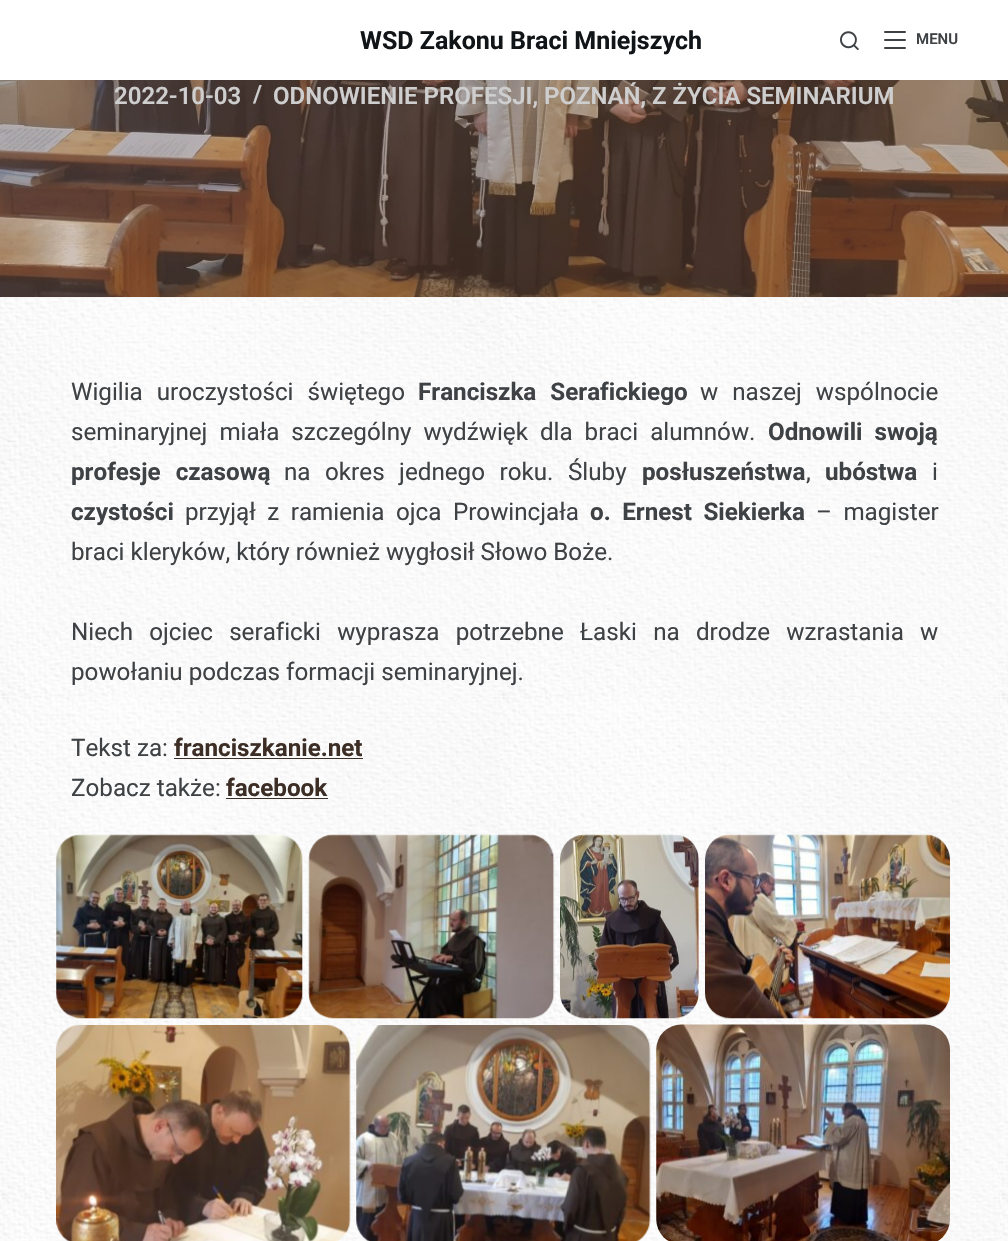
void draw(SkCanvas* canvas) {
    SkPaint paint;
    paint.setAntiAlias(true);
    auto spacedText = [&](const char* s, float x, float y, const SkFont& font, const SkPaint& ink, float letter, float word) {
        std::vector<SkGlyphID> glyphs(font.countText(s, strlen(s), SkTextEncoding::kUTF8));
        std::vector<float> xs(glyphs.size());
        font.textToGlyphs(s, strlen(s), SkTextEncoding::kUTF8, glyphs);
        font.getXPos(glyphs, xs, x);
        float extra = 0;
        for (size_t i = 0; i < glyphs.size(); i++) {
            xs[i] += extra;
            extra += letter + word * (glyphs[i] == font.unicharToGlyph(' '));
        }
        canvas->drawTextBlob(SkTextBlob::MakeFromPosHGlyphs(glyphs, xs, y, font), 0, 0, ink);
    };
    canvas->clear(0xFFFFFFFF);
    canvas->drawImageRect(SkImages::DeferredFromEncodedData(SkData::MakeFromFileName("img1.png")), SkRect::MakeXYWH(0, 298, 1008, 943), SkSamplingOptions());
    SkFont font1(fontMgr->matchFamilyStyle("Roboto", SkFontStyle::Bold()), 25);
    font1.setSubpixel(true);
    paint.setColor(0xFF111518);
    canvas->drawString("WSD Zakonu Braci Mniejszych", 360, 49, font1, paint);
    canvas->drawImageRect(SkImages::DeferredFromEncodedData(SkData::MakeFromFileName("img2.png")), SkRect::MakeXYWH(840, 31, 19, 19), SkSamplingOptions());
    paint.setColor(0xFF3F4245);
    canvas->drawRoundRect(SkRect::MakeXYWH(884, 31, 22, 2), 1, 1, paint);
    canvas->drawRoundRect(SkRect::MakeXYWH(884, 39, 22, 2), 1, 1, paint);
    canvas->drawRoundRect(SkRect::MakeXYWH(884, 47, 22, 2), 1, 1, paint);
    SkFont font2(fontMgr->matchFamilyStyle("Roboto", SkFontStyle(600, SkFontStyle::kNormal_Width, SkFontStyle::kUpright_Slant)), 15);
    font2.setSubpixel(true);
    canvas->drawString("MENU", 916, 44, font2, paint);
    paint.setColor(0xFFF4F4F5);
    canvas->drawRect(SkRect::MakeXYWH(0, 297, 1008, 1), paint);
    canvas->drawImageRect(SkImages::DeferredFromEncodedData(SkData::MakeFromFileName("img3.png")), SkRect::MakeXYWH(0, 80, 1008, 217), SkSamplingOptions());
    SkFont font3(fontMgr->matchFamilyStyle("Roboto", SkFontStyle(600, SkFontStyle::kNormal_Width, SkFontStyle::kUpright_Slant)), 24);
    font3.setSubpixel(true);
    paint.setColor(0xFFCECECE);
    canvas->drawString("2022-10-03", 114, 104, font3, paint);
    canvas->drawString("/", 253, 102, font3, paint);
    canvas->drawString("ODNOWIENIE PROFESJI, POZNAŃ, Z ŻYCIA SEMINARIUM", 273, 104, font3, paint);
    SkFont font4(fontMgr->matchFamilyStyle("Roboto", SkFontStyle::Normal()), 24.2f);
    font4.setSubpixel(true);
    paint.setColor(0xFF3F4245);
    spacedText("Wigilia uroczystości świętego", 71, 400, font4, paint, 0, 8);
    SkFont font5(fontMgr->matchFamilyStyle("Roboto", SkFontStyle::Bold()), 24.2f);
    font5.setSubpixel(true);
    spacedText("Franciszka Serafickiego", 418, 400, font5, paint, 0, 8);
    spacedText("w naszej wspólnocie", 700, 400, font4, paint, 0, 8);
    spacedText("seminaryjnej miała szczególny wydźwięk dla braci alumnów.", 71, 440, font4, paint, 0, 6);
    spacedText("Odnowili swoją", 768, 440, font5, paint, 0, 6);
    spacedText("profesje czasową", 71, 480, font5, paint, 0, 9);
    spacedText("na okres jednego roku. Śluby", 284, 480, font4, paint, 0, 8.5f);
    canvas->drawString("posłuszeństwa", 642, 480, font5, paint);
    canvas->drawString(",", 806, 480, font4, paint);
    canvas->drawString("ubóstwa", 825, 480, font5, paint);
    canvas->drawString("i", 932, 480, font4, paint);
    canvas->drawString("czystości", 71, 520, font5, paint);
    spacedText("przyjął z ramienia ojca Prowincjała", 185, 520, font4, paint, 0, 5.5f);
    spacedText("o. Ernest Siekierka", 590, 520, font5, paint, 0, 5.5f);
    spacedText("– magister", 816, 520, font4, paint, 0, 5.5f);
    canvas->drawString("braci kleryków, który również wygłosił Słowo Boże.", 71, 560, font4, paint);
    spacedText("Niech ojciec seraficki wyprasza potrzebne Łaski na drodze wzrastania w", 71, 640, font4, paint, 0, 10.25f);
    canvas->drawString("powołaniu podczas formacji seminaryjnej.", 71, 680, font4, paint);
    canvas->drawString("Tekst za:", 71, 756, font4, paint);
    paint.setColor(0xFF3C2D25);
    canvas->drawString("franciszkanie.net", 174, 756, font5, paint);
    canvas->drawRect(SkRect::MakeXYWH(174, 758, 189, 1), paint);
    paint.setColor(0xFF3F4245);
    canvas->drawString("Zobacz także:", 71, 796, font4, paint);
    paint.setColor(0xFF3C2D25);
    canvas->drawString("facebook", 226, 796, font5, paint);
    canvas->drawRect(SkRect::MakeXYWH(226, 798, 102, 1), paint);
    canvas->drawImageRect(SkImages::DeferredFromEncodedData(SkData::MakeFromFileName("img4.png")), SkRect::MakeXYWH(56, 834, 247, 185), SkSamplingOptions());
    canvas->drawImageRect(SkImages::DeferredFromEncodedData(SkData::MakeFromFileName("img5.png")), SkRect::MakeXYWH(308, 834, 247, 185), SkSamplingOptions());
    canvas->drawImageRect(SkImages::DeferredFromEncodedData(SkData::MakeFromFileName("img6.png")), SkRect::MakeXYWH(560, 834, 139, 185), SkSamplingOptions());
    canvas->drawImageRect(SkImages::DeferredFromEncodedData(SkData::MakeFromFileName("img7.png")), SkRect::MakeXYWH(705, 834, 245, 185), SkSamplingOptions());
    canvas->drawImageRect(SkImages::DeferredFromEncodedData(SkData::MakeFromFileName("img8.png")), SkRect::MakeXYWH(56, 1025, 295, 216), SkSamplingOptions());
    canvas->drawImageRect(SkImages::DeferredFromEncodedData(SkData::MakeFromFileName("img9.png")), SkRect::MakeXYWH(356, 1025, 295, 216), SkSamplingOptions());
    canvas->drawImageRect(SkImages::DeferredFromEncodedData(SkData::MakeFromFileName("img10.png")), SkRect::MakeXYWH(656, 1024, 294, 217), SkSamplingOptions());
}
